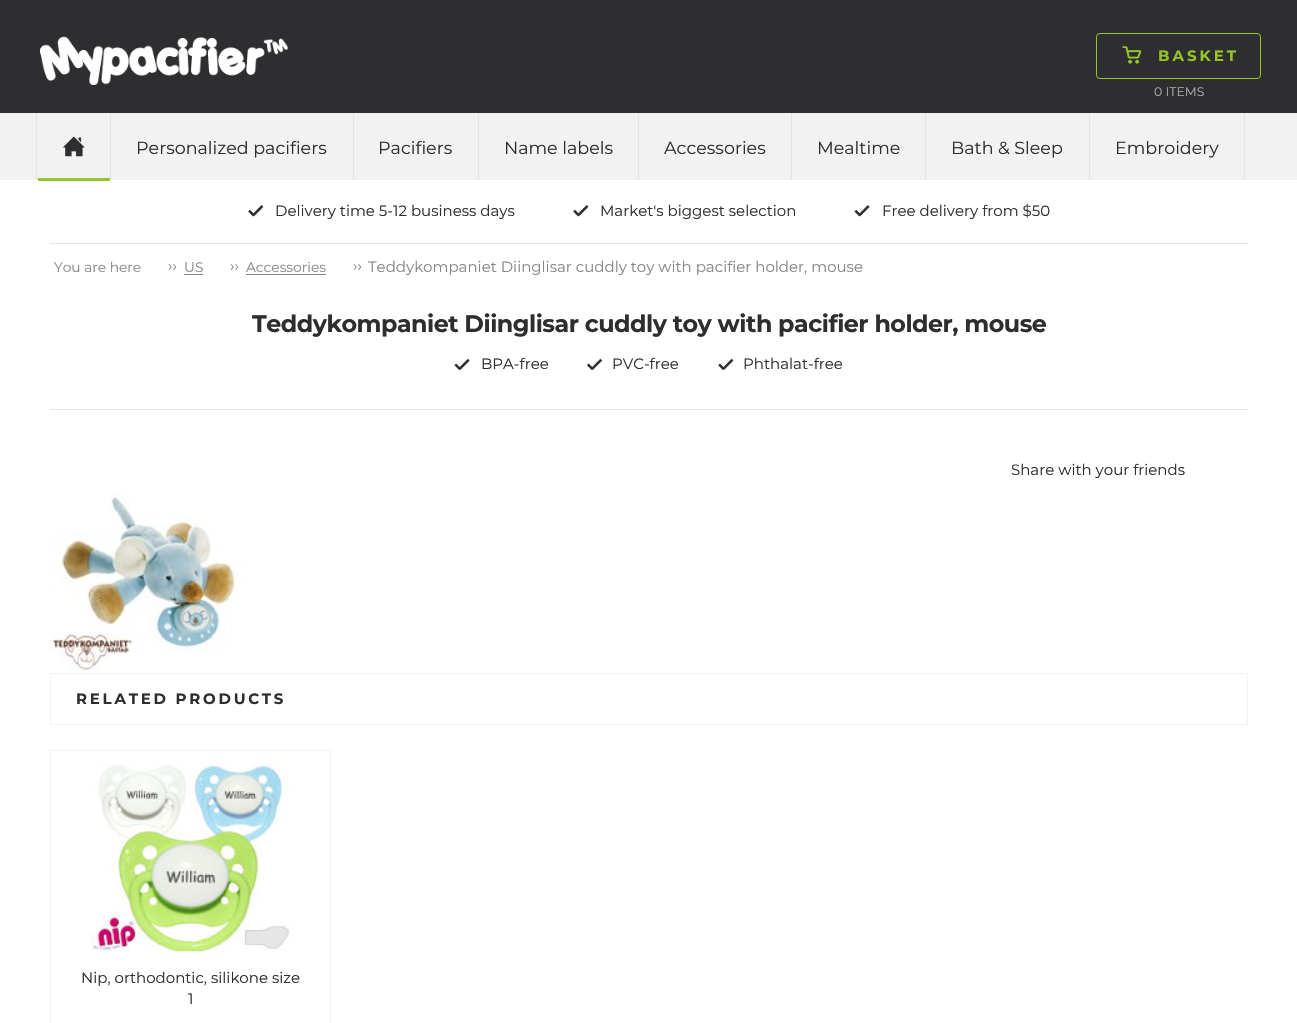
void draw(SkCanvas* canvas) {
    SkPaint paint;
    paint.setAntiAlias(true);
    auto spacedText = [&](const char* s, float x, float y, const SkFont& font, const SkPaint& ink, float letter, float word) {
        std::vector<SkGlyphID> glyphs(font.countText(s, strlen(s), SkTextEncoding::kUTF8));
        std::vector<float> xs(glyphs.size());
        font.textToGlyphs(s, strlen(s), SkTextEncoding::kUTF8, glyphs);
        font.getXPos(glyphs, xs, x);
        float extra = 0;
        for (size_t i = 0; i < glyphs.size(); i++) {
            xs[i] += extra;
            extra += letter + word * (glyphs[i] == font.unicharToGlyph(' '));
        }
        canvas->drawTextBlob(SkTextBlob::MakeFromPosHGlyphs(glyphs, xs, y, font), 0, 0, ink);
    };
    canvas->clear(0xFFFFFFFF);
    paint.setColor(0xFF2E2E30);
    canvas->drawRect(SkRect::MakeXYWH(0, 0, 1297, 113), paint);
    canvas->drawImageRect(SkImages::DeferredFromEncodedData(SkData::MakeFromFileName("img1.png")), SkRect::MakeXYWH(39, 36, 250, 49), SkSamplingOptions());
    paint.setStyle(SkPaint::kStroke_Style);
    paint.setStrokeWidth(1);
    paint.setColor(0xFF96C525);
    canvas->drawRoundRect(SkRect::MakeXYWH(1096.5f, 33.5f, 164, 45), 3.5f, 3.5f, paint);
    canvas->drawImageRect(SkImages::DeferredFromEncodedData(SkData::MakeFromFileName("img2.png")), SkRect::MakeXYWH(1122, 46, 20, 18), SkSamplingOptions());
    SkFont font1(fontMgr->matchFamilyStyle("Montserrat", SkFontStyle::Bold()), 15);
    font1.setSubpixel(true);
    paint.setStyle(SkPaint::kFill_Style);
    spacedText("BASKET", 1158, 61, font1, paint, 3, 0);
    SkFont font2(fontMgr->matchFamilyStyle("Montserrat", SkFontStyle::Normal()), 12.5f);
    font2.setSubpixel(true);
    paint.setColor(0xFFABABAC);
    canvas->drawString("0 ITEMS", 1154, 96, font2, paint);
    paint.setColor(0xFFF2F2F2);
    canvas->drawRect(SkRect::MakeXYWH(0, 113, 1297, 67), paint);
    paint.setColor(0xFFE4E4E4);
    canvas->drawRect(SkRect::MakeXYWH(110, 113, 1, 67), paint);
    canvas->drawRect(SkRect::MakeXYWH(36, 113, 1, 67), paint);
    paint.setColor(0xFF96C525);
    canvas->drawRect(SkRect::MakeXYWH(38, 178, 72, 3), paint);
    canvas->drawImageRect(SkImages::DeferredFromEncodedData(SkData::MakeFromFileName("img3.png")), SkRect::MakeXYWH(62, 136, 23, 21), SkSamplingOptions());
    paint.setColor(0xFFE4E4E4);
    canvas->drawRect(SkRect::MakeXYWH(353, 113, 1, 67), paint);
    SkFont font3(fontMgr->matchFamilyStyle("Montserrat", SkFontStyle::Normal()), 17.5f);
    font3.setSubpixel(true);
    paint.setColor(0xFF2E2E30);
    canvas->drawString("Personalized pacifiers", 136, 154, font3, paint);
    paint.setColor(0xFFE4E4E4);
    canvas->drawRect(SkRect::MakeXYWH(478, 113, 1, 67), paint);
    paint.setColor(0xFF2E2E30);
    canvas->drawString("Pacifiers", 378, 154, font3, paint);
    paint.setColor(0xFFE4E4E4);
    canvas->drawRect(SkRect::MakeXYWH(638, 113, 1, 67), paint);
    paint.setColor(0xFF2E2E30);
    canvas->drawString("Name labels", 504, 154, font3, paint);
    paint.setColor(0xFFE4E4E4);
    canvas->drawRect(SkRect::MakeXYWH(791, 113, 1, 67), paint);
    paint.setColor(0xFF2E2E30);
    canvas->drawString("Accessories", 664, 154, font3, paint);
    paint.setColor(0xFFE4E4E4);
    canvas->drawRect(SkRect::MakeXYWH(925, 113, 1, 67), paint);
    paint.setColor(0xFF2E2E30);
    canvas->drawString("Mealtime", 817, 154, font3, paint);
    paint.setColor(0xFFE4E4E4);
    canvas->drawRect(SkRect::MakeXYWH(1089, 113, 1, 67), paint);
    paint.setColor(0xFF2E2E30);
    canvas->drawString("Bath & Sleep", 951, 154, font3, paint);
    paint.setColor(0xFFE4E4E4);
    canvas->drawRect(SkRect::MakeXYWH(1244, 113, 1, 67), paint);
    paint.setColor(0xFF2E2E30);
    canvas->drawString("Embroidery", 1115, 154, font3, paint);
    canvas->drawImageRect(SkImages::DeferredFromEncodedData(SkData::MakeFromFileName("img4.png")), SkRect::MakeXYWH(248, 205, 16, 12), SkSamplingOptions());
    SkFont font4(fontMgr->matchFamilyStyle("Montserrat", SkFontStyle::Normal()), 15);
    font4.setSubpixel(true);
    canvas->drawString("Delivery time 5-12 business days", 275, 216, font4, paint);
    canvas->drawImageRect(SkImages::DeferredFromEncodedData(SkData::MakeFromFileName("img5.png")), SkRect::MakeXYWH(573, 205, 16, 12), SkSamplingOptions());
    canvas->drawString("Market's biggest selection", 600, 216, font4, paint);
    canvas->drawImageRect(SkImages::DeferredFromEncodedData(SkData::MakeFromFileName("img6.png")), SkRect::MakeXYWH(854, 205, 16, 12), SkSamplingOptions());
    canvas->drawString("Free delivery from $50", 882, 216, font4, paint);
    paint.setColor(0xFFE4E4E4);
    canvas->drawRect(SkRect::MakeXYWH(50, 243, 1198, 1), paint);
    SkFont font5(fontMgr->matchFamilyStyle("Montserrat", SkFontStyle::Normal()), 13.75f);
    font5.setSubpixel(true);
    paint.setColor(0xFF888888);
    canvas->drawString("You are here", 54, 272, font5, paint);
    canvas->drawString("››", 168, 271, font4, paint);
    canvas->drawString("US", 184, 272, font5, paint);
    canvas->drawRect(SkRect::MakeXYWH(184, 274, 19, 1), paint);
    canvas->drawString("››", 230, 271, font4, paint);
    canvas->drawString("Accessories", 246, 272, font5, paint);
    canvas->drawRect(SkRect::MakeXYWH(246, 274, 80, 1), paint);
    canvas->drawString("››", 353, 271, font4, paint);
    canvas->drawString("Teddykompaniet Diinglisar cuddly toy with pacifier holder, mouse", 368, 272, font4, paint);
    paint.setColor(0xFFE4E4E4);
    canvas->drawRect(SkRect::MakeXYWH(50, 409, 1198, 1), paint);
    SkFont font6(fontMgr->matchFamilyStyle("Montserrat", SkFontStyle::Bold()), 23.75f);
    font6.setSubpixel(true);
    paint.setColor(0xFF2E2E30);
    spacedText("Teddykompaniet Diinglisar cuddly toy with pacifier holder, mouse", 252, 332, font6, paint, -0.47f, 0);
    canvas->drawImageRect(SkImages::DeferredFromEncodedData(SkData::MakeFromFileName("img7.png")), SkRect::MakeXYWH(454, 358, 16, 12), SkSamplingOptions());
    canvas->drawString("BPA-free", 481, 369, font4, paint);
    canvas->drawImageRect(SkImages::DeferredFromEncodedData(SkData::MakeFromFileName("img8.png")), SkRect::MakeXYWH(587, 358, 16, 12), SkSamplingOptions());
    canvas->drawString("PVC-free", 612, 369, font4, paint);
    canvas->drawImageRect(SkImages::DeferredFromEncodedData(SkData::MakeFromFileName("img9.png")), SkRect::MakeXYWH(718, 358, 16, 12), SkSamplingOptions());
    canvas->drawString("Phthalat-free", 743, 369, font4, paint);
    canvas->drawString("Share with your friends", 1011, 475, font4, paint);
    canvas->drawImageRect(SkImages::DeferredFromEncodedData(SkData::MakeFromFileName("img10.png")), SkRect::MakeXYWH(50, 493, 193, 178), SkSamplingOptions());
    paint.setStyle(SkPaint::kStroke_Style);
    paint.setColor(0xFFF2F2F2);
    canvas->drawRect(SkRect::MakeXYWH(50.5f, 673.5f, 1197, 51), paint);
    paint.setStyle(SkPaint::kFill_Style);
    paint.setColor(0xFF2E2E30);
    spacedText("RELATED PRODUCTS", 76, 704, font1, paint, 2.75f, 0);
    paint.setStyle(SkPaint::kStroke_Style);
    paint.setColor(0xFFF2F2F2);
    canvas->drawRect(SkRect::MakeXYWH(50.5f, 750.5f, 280, 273), paint);
    canvas->drawImageRect(SkImages::DeferredFromEncodedData(SkData::MakeFromFileName("img11.png")), SkRect::MakeXYWH(90, 761, 200, 191), SkSamplingOptions());
    paint.setStyle(SkPaint::kFill_Style);
    paint.setColor(0xFF2E2E30);
    canvas->drawString("Nip, orthodontic, silikone size", 81, 983, font4, paint);
    canvas->drawString("1", 188, 1004, font4, paint);
}
